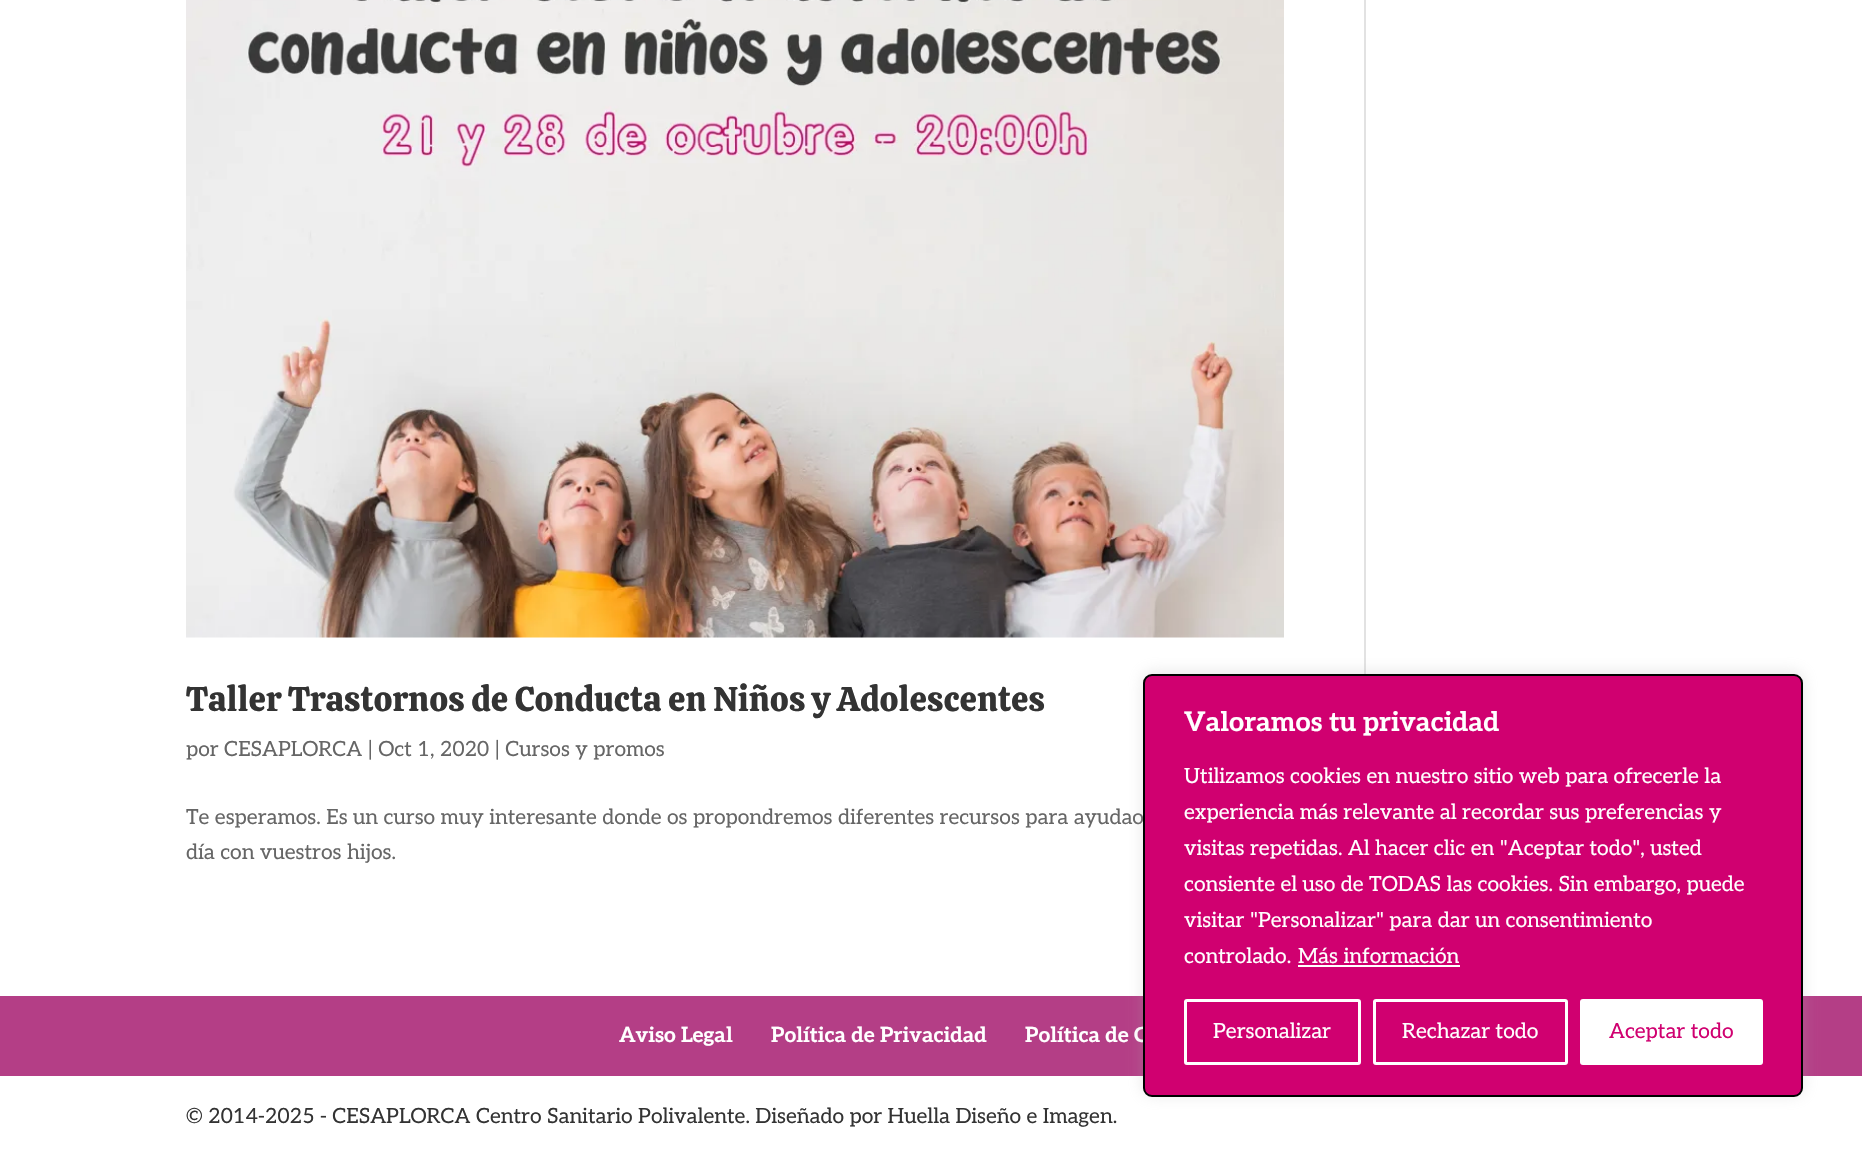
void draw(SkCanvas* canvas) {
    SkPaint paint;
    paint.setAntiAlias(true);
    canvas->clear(0xFFFFFFFF);
    paint.setColor(0xFFE2E2E2);
    canvas->drawRect(SkRect::MakeXYWH(1364, 0, 2, 674), paint);
    canvas->drawImageRect(SkImages::DeferredFromEncodedData(SkData::MakeFromFileName("img1.png")), SkRect::MakeXYWH(186, 0, 1098, 638), SkSamplingOptions());
    SkFont font1(fontMgr->matchFamilyStyle("Calistoga", SkFontStyle::Normal()), 34.5f);
    font1.setSubpixel(true);
    paint.setColor(0xFF333333);
    canvas->drawString("Taller Trastornos de Conducta en Niños y Adolescentes", 186, 711, font1, paint);
    SkFont font2(fontMgr->matchFamilyStyle("Aleo", SkFontStyle::Normal()), 21);
    font2.setSubpixel(true);
    paint.setColor(0xFF666666);
    canvas->drawString("por CESAPLORCA | Oct 1, 2020 | Cursos y promos", 186, 756, font2, paint);
    canvas->drawString("Te esperamos. Es un curso muy interesante donde os propondremos diferentes recursos para ayudao", 186, 824, font2, paint);
    canvas->drawString("día con vuestros hijos.", 186, 859, font2, paint);
    paint.setColor(0xFFB43E86);
    canvas->drawRect(SkRect::MakeXYWH(0, 996, 1862, 80), paint);
    SkFont font3(fontMgr->matchFamilyStyle("Aleo", SkFontStyle::Bold()), 21);
    font3.setSubpixel(true);
    paint.setColor(0xFFFFFFFF);
    canvas->drawString("Aviso Legal", 619, 1042, font3, paint);
    canvas->drawString("Política de Privacidad", 771, 1042, font3, paint);
    canvas->drawString("Política de C", 1025, 1042, font3, paint);
    paint.setColor(0xFF333333);
    canvas->drawString("© 2014-2025 - CESAPLORCA Centro Sanitario Polivalente. Diseñado por Huella Diseño e Imagen.", 186, 1123, font2, paint);
    paint.setColor(0x4DACABAB);
    paint.setMaskFilter(SkMaskFilter::MakeBlur(kNormal_SkBlurStyle, 7.5f));
    canvas->drawRoundRect(SkRect::MakeXYWH(1143, 672, 660, 423), 9, 9, paint);
    paint.setMaskFilter(nullptr);
    paint.setColor(0xFFD00070);
    canvas->drawRoundRect(SkRect::MakeXYWH(1144, 675, 658, 421), 8, 8, paint);
    paint.setStyle(SkPaint::kStroke_Style);
    paint.setStrokeWidth(2);
    paint.setColor(0xFF000000);
    canvas->drawRoundRect(SkRect::MakeXYWH(1144, 675, 658, 421), 8, 8, paint);
    SkFont font4(fontMgr->matchFamilyStyle("Aleo", SkFontStyle::Bold()), 27);
    font4.setSubpixel(true);
    paint.setStyle(SkPaint::kFill_Style);
    paint.setColor(0xFFFFFFFF);
    canvas->drawString("Valoramos tu privacidad", 1184, 731, font4, paint);
    canvas->drawString("Utilizamos cookies en nuestro sitio web para ofrecerle la", 1184, 783, font2, paint);
    canvas->drawString("experiencia más relevante al recordar sus preferencias y", 1184, 819, font2, paint);
    canvas->drawString("visitas repetidas. Al hacer clic en \"Aceptar todo\", usted", 1184, 855, font2, paint);
    canvas->drawString("consiente el uso de TODAS las cookies. Sin embargo, puede", 1184, 891, font2, paint);
    canvas->drawString("visitar \"Personalizar\" para dar un consentimiento", 1184, 927, font2, paint);
    canvas->drawString("controlado.", 1184, 963, font2, paint);
    canvas->drawString("Más información", 1298, 963, font2, paint);
    canvas->drawRect(SkRect::MakeXYWH(1298, 965, 162, 2), paint);
    paint.setStyle(SkPaint::kStroke_Style);
    paint.setStrokeWidth(3);
    canvas->drawRoundRect(SkRect::MakeXYWH(1185.5f, 1000.5f, 174, 63), 1.5f, 1.5f, paint);
    paint.setStyle(SkPaint::kFill_Style);
    canvas->drawString("Personalizar", 1213, 1038, font2, paint);
    paint.setStyle(SkPaint::kStroke_Style);
    canvas->drawRoundRect(SkRect::MakeXYWH(1374.5f, 1000.5f, 192, 63), 1.5f, 1.5f, paint);
    paint.setStyle(SkPaint::kFill_Style);
    canvas->drawString("Rechazar todo", 1402, 1038, font2, paint);
    canvas->drawRoundRect(SkRect::MakeXYWH(1581.5f, 1000.5f, 180, 63), 1.5f, 1.5f, paint);
    paint.setStyle(SkPaint::kStroke_Style);
    canvas->drawRoundRect(SkRect::MakeXYWH(1581.5f, 1000.5f, 180, 63), 1.5f, 1.5f, paint);
    paint.setStyle(SkPaint::kFill_Style);
    paint.setColor(0xFFD00070);
    canvas->drawString("Aceptar todo", 1609, 1038, font2, paint);
}
